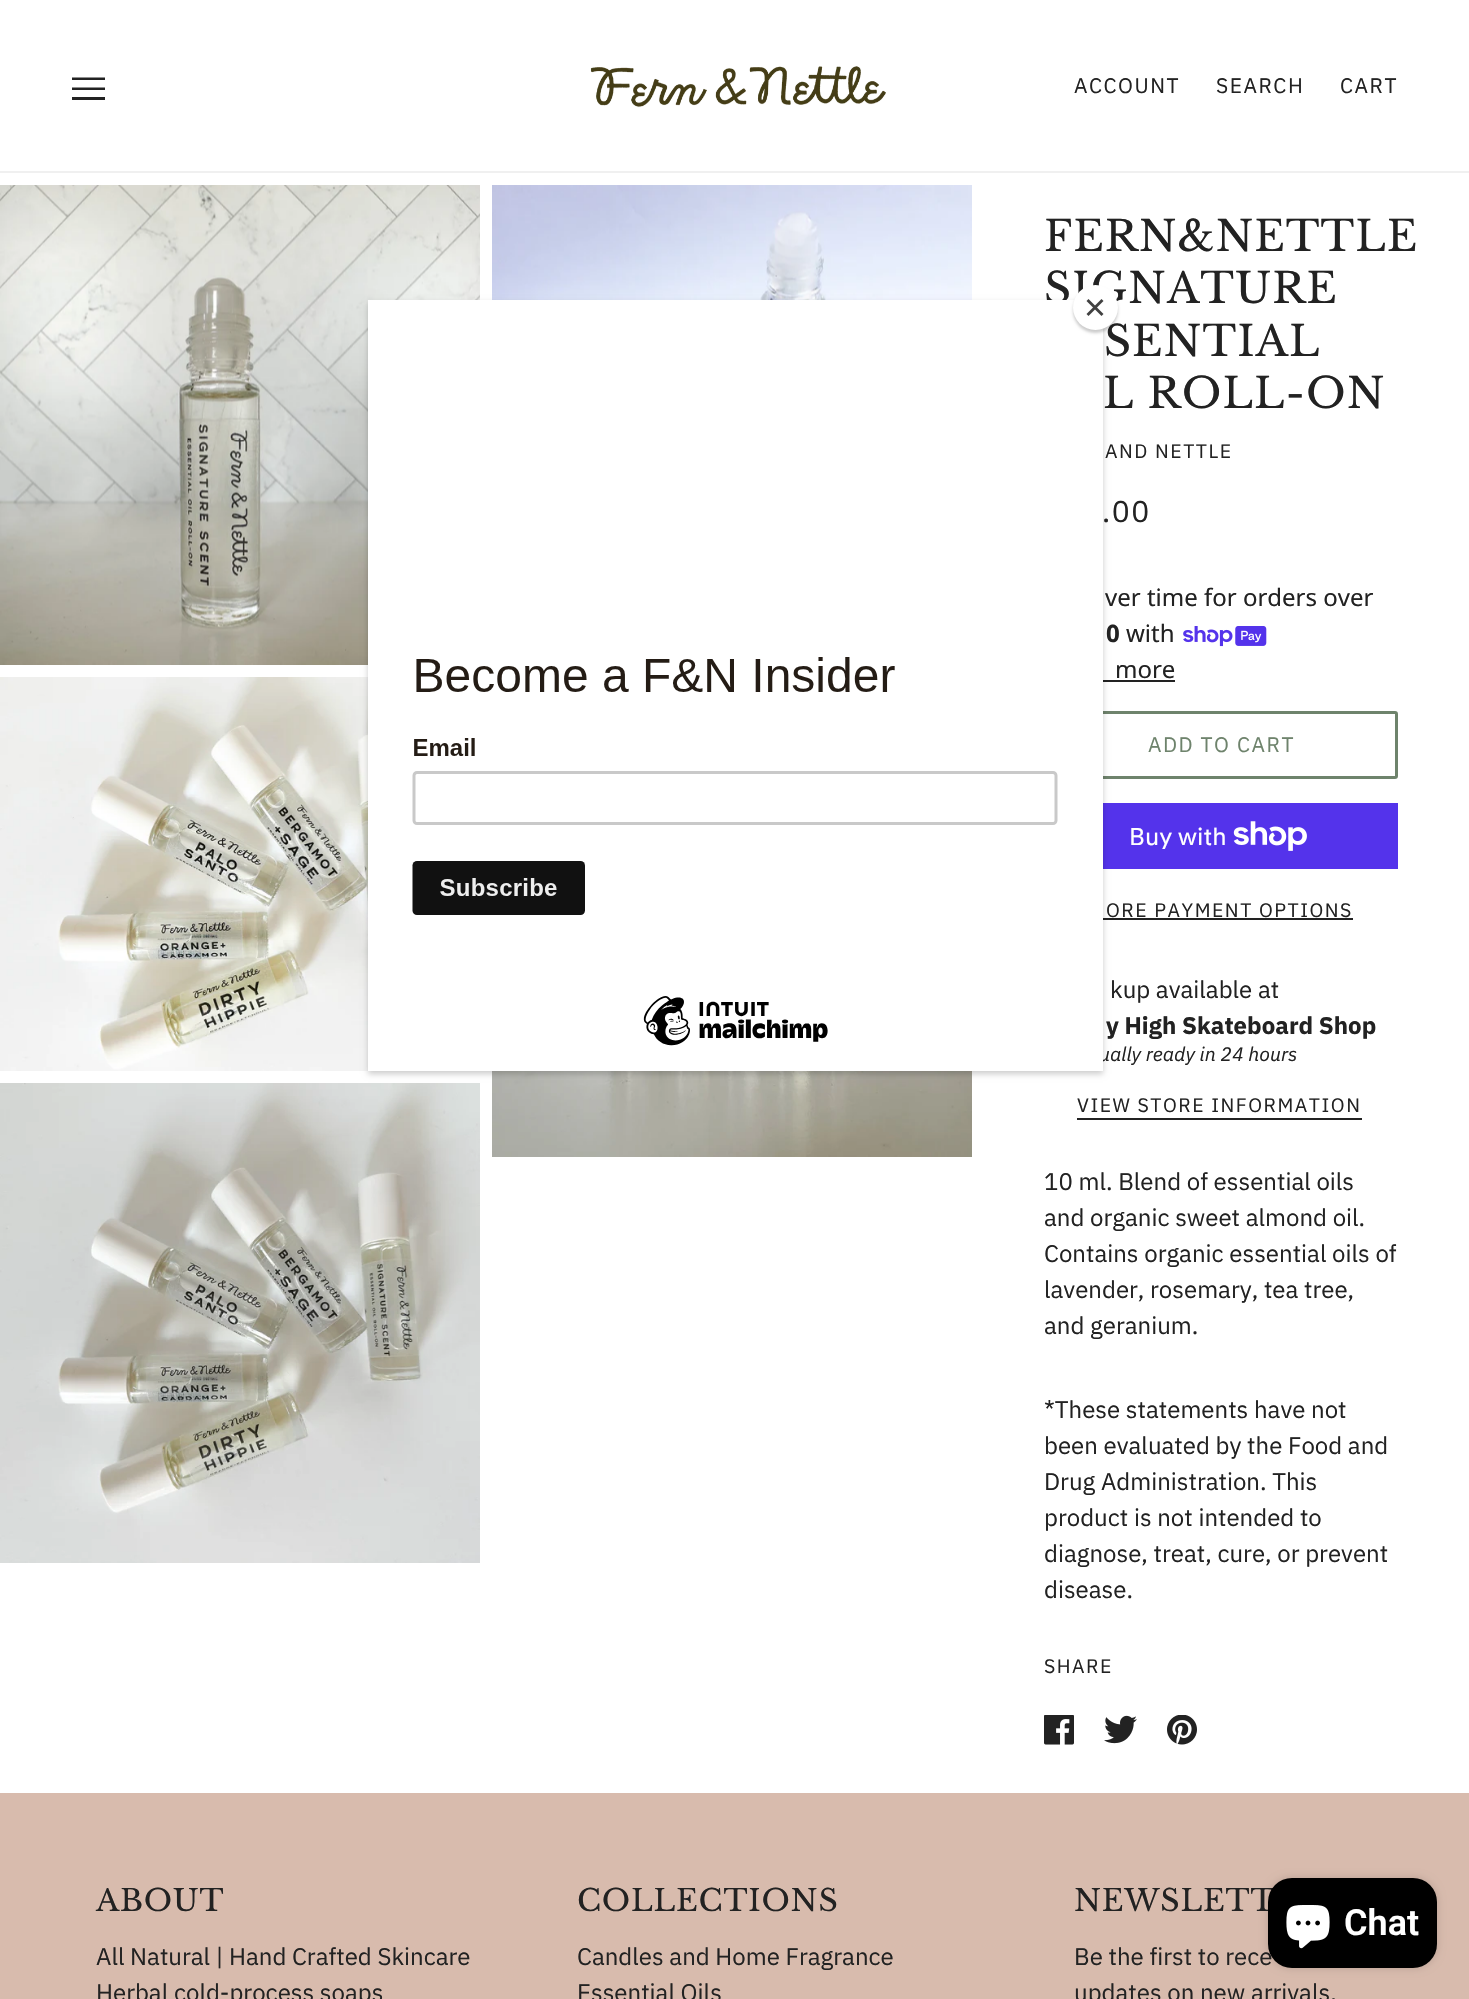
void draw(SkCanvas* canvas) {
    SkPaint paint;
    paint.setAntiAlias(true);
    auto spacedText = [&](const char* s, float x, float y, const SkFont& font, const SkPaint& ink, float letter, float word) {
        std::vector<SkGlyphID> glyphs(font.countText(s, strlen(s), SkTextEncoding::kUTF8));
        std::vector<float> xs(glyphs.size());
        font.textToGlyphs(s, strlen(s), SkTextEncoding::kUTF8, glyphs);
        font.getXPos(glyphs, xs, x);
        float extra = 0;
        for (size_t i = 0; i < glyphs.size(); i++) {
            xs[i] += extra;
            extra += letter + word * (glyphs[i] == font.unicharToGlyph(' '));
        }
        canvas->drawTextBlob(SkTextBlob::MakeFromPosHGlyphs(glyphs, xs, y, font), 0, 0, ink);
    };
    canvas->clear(0xFFFFFFFF);
    paint.setColor(0xFFF0F0F0);
    canvas->drawRect(SkRect::MakeXYWH(0, 171, 1469, 2), paint);
    paint.setColor(0xFF222222);
    canvas->drawPath(SkPathBuilder().moveTo(72, 80).lineTo(72, 77.5f).lineTo(105, 77.5f).lineTo(105, 80).close().moveTo(72, 90).lineTo(72, 87.5f).lineTo(105, 87.5f).lineTo(105, 90).close().moveTo(72, 100).lineTo(72, 97).lineTo(105, 97).lineTo(105, 100).close().detach(), paint);
    canvas->drawImageRect(SkImages::DeferredFromEncodedData(SkData::MakeFromFileName("img1.png")), SkRect::MakeXYWH(590, 66, 296, 42), SkSamplingOptions());
    SkFont font1(fontMgr->matchFamilyStyle("IBM Plex Sans", SkFontStyle::Normal()), 21);
    font1.setSubpixel(true);
    spacedText("ACCOUNT", 1074, 93, font1, paint, 1.5f, 0);
    spacedText("SEARCH", 1216, 93, font1, paint, 1.5f, 0);
    spacedText("CART", 1340, 93, font1, paint, 1.5f, 0);
    canvas->drawImageRect(SkImages::DeferredFromEncodedData(SkData::MakeFromFileName("img2.png")), SkRect::MakeXYWH(0, 185, 480, 480), SkSamplingOptions());
    canvas->drawImageRect(SkImages::DeferredFromEncodedData(SkData::MakeFromFileName("img3.png")), SkRect::MakeXYWH(492, 185, 480, 115), SkSamplingOptions());
    canvas->drawImageRect(SkImages::DeferredFromEncodedData(SkData::MakeFromFileName("img4.png")), SkRect::MakeXYWH(0, 677, 368, 394), SkSamplingOptions());
    canvas->drawImageRect(SkImages::DeferredFromEncodedData(SkData::MakeFromFileName("img5.png")), SkRect::MakeXYWH(0, 1083, 480, 480), SkSamplingOptions());
    canvas->drawImageRect(SkImages::DeferredFromEncodedData(SkData::MakeFromFileName("img6.png")), SkRect::MakeXYWH(492, 1071, 480, 86), SkSamplingOptions());
    SkFont font2(fontMgr->matchFamilyStyle("Libre Baskerville", SkFontStyle::Normal()), 42);
    font2.setSubpixel(true);
    spacedText("FERN&NETTLE", 1044, 251, font2, paint, 1, 0);
    spacedText("SIGNATURE", 1044, 303, font2, paint, 1, 0);
    spacedText("SENTIAL", 1104, 356, font2, paint, 1, 0);
    spacedText("L ROLL-ON", 1103, 408, font2, paint, 1, 0);
    SkFont font3(fontMgr->matchFamilyStyle("IBM Plex Sans", SkFontStyle::Normal()), 19.5f);
    font3.setSubpixel(true);
    spacedText("AND NETTLE", 1105, 458, font3, paint, 1.5f, 0);
    SkFont font4(fontMgr->matchFamilyStyle("IBM Plex Sans", SkFontStyle::Normal()), 30);
    font4.setSubpixel(true);
    spacedText(".00", 1102, 522, font4, paint, 1.5f, 0);
    SkFont font5(fontMgr->matchFamilyStyle("Noto Sans", SkFontStyle::Normal()), 24);
    font5.setSubpixel(true);
    canvas->drawString("ver time for orders over", 1105, 606, font5, paint);
    SkFont font6(fontMgr->matchFamilyStyle("Noto Sans", SkFontStyle::Bold()), 24);
    font6.setSubpixel(true);
    canvas->drawString("0", 1106, 642, font6, paint);
    canvas->drawString("with", 1126, 642, font5, paint);
    canvas->drawImageRect(SkImages::DeferredFromEncodedData(SkData::MakeFromFileName("img7.png")), SkRect::MakeXYWH(1183, 626, 84, 21), SkSamplingOptions());
    canvas->drawString("more", 1115, 678, font5, paint);
    canvas->drawRect(SkRect::MakeXYWH(1103, 680, 72, 2), paint);
    paint.setStyle(SkPaint::kStroke_Style);
    paint.setStrokeWidth(3);
    paint.setColor(0xFF6E836C);
    canvas->drawRoundRect(SkRect::MakeXYWH(1045.5f, 712.5f, 351, 65), 1.5f, 1.5f, paint);
    paint.setStyle(SkPaint::kFill_Style);
    spacedText("ADD TO CART", 1148, 752, font1, paint, 1.5f, 0);
    paint.setColor(0xFF5433EB);
    canvas->drawRect(SkRect::MakeXYWH(1103, 803, 295, 66), paint);
    SkFont font7(fontMgr->matchFamilyStyle("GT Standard", SkFontStyle::Normal()), 24);
    font7.setSubpixel(true);
    paint.setColor(0xFFFFFFFF);
    canvas->drawString("Buy with", 1129, 845, font7, paint);
    canvas->drawImageRect(SkImages::DeferredFromEncodedData(SkData::MakeFromFileName("img8.png")), SkRect::MakeXYWH(1233, 821, 74, 30), SkSamplingOptions());
    paint.setColor(0xFF222222);
    spacedText("ORE PAYMENT OPTIONS", 1106, 917, font3, paint, 1.5f, 0);
    canvas->drawRect(SkRect::MakeXYWH(1103, 918, 250, 2), paint);
    SkFont font8(fontMgr->matchFamilyStyle("IBM Plex Sans", SkFontStyle::Normal()), 24);
    font8.setSubpixel(true);
    canvas->drawString("kup available at", 1110, 998, font8, paint);
    SkFont font9(fontMgr->matchFamilyStyle("IBM Plex Sans", SkFontStyle::Bold()), 24);
    font9.setSubpixel(true);
    canvas->drawString("y High Skateboard Shop", 1106, 1034, font9, paint);
    SkFont font10(fontMgr->matchFamilyStyle("IBM Plex Sans", SkFontStyle::Italic()), 19.5f);
    font10.setSubpixel(true);
    canvas->drawString("ually ready in 24 hours", 1099, 1061, font10, paint);
    spacedText("VIEW STORE INFORMATION", 1077, 1112, font3, paint, 1.5f, 0);
    canvas->drawRect(SkRect::MakeXYWH(1077, 1118, 285, 2), paint);
    canvas->drawString("10 ml. Blend of essential oils", 1044, 1190, font8, paint);
    canvas->drawString("and organic sweet almond oil.", 1044, 1226, font8, paint);
    canvas->drawString("Contains organic essential oils of", 1044, 1262, font8, paint);
    canvas->drawString("lavender, rosemary, tea tree,", 1044, 1298, font8, paint);
    canvas->drawString("and geranium.", 1044, 1334, font8, paint);
    canvas->drawString("*These statements have not", 1044, 1418, font8, paint);
    canvas->drawString("been evaluated by the Food and", 1044, 1454, font8, paint);
    canvas->drawString("Drug Administration. This", 1044, 1490, font8, paint);
    canvas->drawString("product is not intended to", 1044, 1526, font8, paint);
    canvas->drawString("diagnose, treat, cure, or prevent", 1044, 1562, font8, paint);
    canvas->drawString("disease.", 1044, 1598, font8, paint);
    spacedText("SHARE", 1044, 1673, font3, paint, 1.5f, 0);
    canvas->drawImageRect(SkImages::DeferredFromEncodedData(SkData::MakeFromFileName("img9.png")), SkRect::MakeXYWH(1044, 1715, 30, 30), SkSamplingOptions());
    canvas->drawImageRect(SkImages::DeferredFromEncodedData(SkData::MakeFromFileName("img10.png")), SkRect::MakeXYWH(1104, 1715, 33, 29), SkSamplingOptions());
    canvas->drawImageRect(SkImages::DeferredFromEncodedData(SkData::MakeFromFileName("img11.png")), SkRect::MakeXYWH(1167, 1715, 30, 30), SkSamplingOptions());
    paint.setColor(0xFFD8BBAD);
    canvas->drawRect(SkRect::MakeXYWH(0, 1793, 1469, 206), paint);
    SkFont font11(fontMgr->matchFamilyStyle("Libre Baskerville", SkFontStyle::Normal()), 30);
    font11.setSubpixel(true);
    paint.setColor(0xFF222222);
    spacedText("ABOUT", 96, 1911, font11, paint, 0.75f, 0);
    canvas->drawString("All Natural | Hand Crafted Skincare", 96, 1965, font8, paint);
    canvas->drawString("Herbal cold-process soaps", 96, 2001, font8, paint);
    spacedText("COLLECTIONS", 577, 1911, font11, paint, 0.75f, 0);
    canvas->drawString("Candles and Home Fragrance", 577, 1965, font8, paint);
    canvas->drawString("Essential Oils", 577, 2001, font8, paint);
    spacedText("NEWSLETT", 1074, 1911, font11, paint, 0.75f, 0);
    canvas->drawString("Be the first to rece", 1074, 1965, font8, paint);
    canvas->drawString("updates on new arrivals,", 1074, 2001, font8, paint);
    paint.setColor(0x33000000);
    paint.setMaskFilter(SkMaskFilter::MakeBlur(kNormal_SkBlurStyle, 3));
    canvas->drawRect(SkRect::MakeXYWH(368, 303, 735, 771), paint);
    paint.setMaskFilter(nullptr);
    canvas->drawImageRect(SkImages::DeferredFromEncodedData(SkData::MakeFromFileName("img12.png")), SkRect::MakeXYWH(368, 300, 735, 771), SkSamplingOptions());
    paint.setMaskFilter(SkMaskFilter::MakeBlur(kNormal_SkBlurStyle, 1.5f));
    canvas->drawRoundRect(SkRect::MakeXYWH(1073, 288, 45, 45), 22.5f, 22.5f, paint);
    paint.setMaskFilter(nullptr);
    paint.setColor(0xFFFFFFFF);
    canvas->drawCircle(1095.5f, 307.5f, 22.5f, paint);
    paint.setColor(0xFF414141);
    canvas->drawPath(SkPathBuilder().moveTo(1101.5f, 299).lineTo(1103.5f, 301).lineTo(1088.5f, 316).lineTo(1086.5f, 314).close().detach(), paint);
    canvas->drawPath(SkPathBuilder().moveTo(1086.5f, 301).lineTo(1088.5f, 299).lineTo(1103.5f, 314).lineTo(1101.5f, 316).close().detach(), paint);
    paint.setColor(0x26000000);
    paint.setMaskFilter(SkMaskFilter::MakeBlur(kNormal_SkBlurStyle, 4));
    canvas->drawRoundRect(SkRect::MakeXYWH(1268, 1878, 169, 90), 24, 24, paint);
    paint.setMaskFilter(nullptr);
    paint.setColor(0xFF000000);
    canvas->drawRoundRect(SkRect::MakeXYWH(1268, 1878, 169, 90), 24, 24, paint);
    canvas->drawImageRect(SkImages::DeferredFromEncodedData(SkData::MakeFromFileName("img13.png")), SkRect::MakeXYWH(1286, 1905, 44, 44), SkSamplingOptions());
    SkFont font12(fontMgr->matchFamilyStyle("Roboto", SkFontStyle(600, SkFontStyle::kNormal_Width, SkFontStyle::kUpright_Slant)), 36);
    font12.setSubpixel(true);
    paint.setColor(0xFFFFFFFF);
    canvas->drawString("Chat", 1344, 1935, font12, paint);
}
